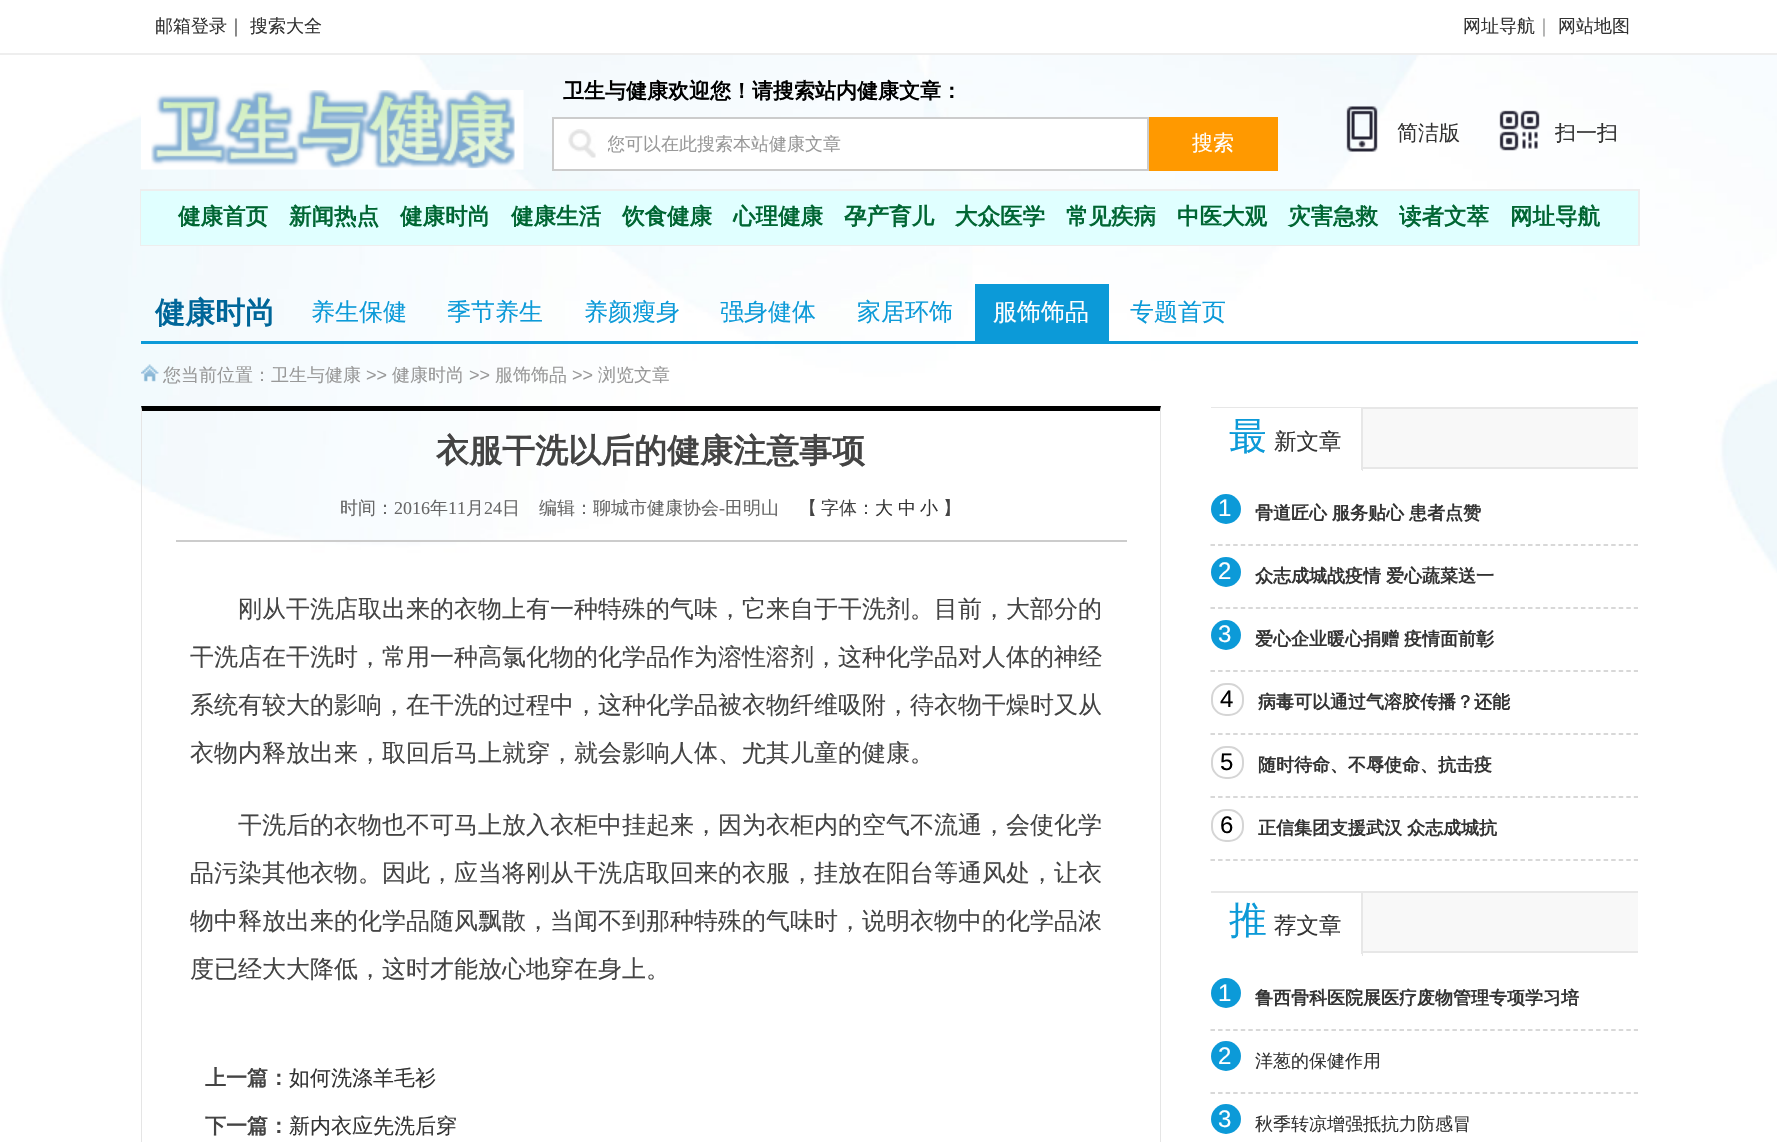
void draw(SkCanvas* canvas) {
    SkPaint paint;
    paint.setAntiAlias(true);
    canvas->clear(0xFFFFFFFF);
    canvas->drawImageRect(SkImages::DeferredFromEncodedData(SkData::MakeFromFileName("img1.png")), SkRect::MakeXYWH(0, 55, 1777, 518), SkSamplingOptions());
    paint.setColor(0xFFEEEEEE);
    canvas->drawRect(SkRect::MakeXYWH(0, 53, 1777, 2), paint);
    SkFont font1(fontMgr->matchFamilyStyle("WenQuanYi Zen Hei", SkFontStyle(500, SkFontStyle::kNormal_Width, SkFontStyle::kUpright_Slant)), 18);
    font1.setSubpixel(true);
    paint.setColor(0xFF333333);
    canvas->drawString("邮箱登录", 155, 32, font1, paint);
    paint.setColor(0xFF444444);
    canvas->drawString("｜", 227, 32, font1, paint);
    paint.setColor(0xFF333333);
    canvas->drawString("搜索大全", 250, 32, font1, paint);
    canvas->drawString("网址导航", 1463, 32, font1, paint);
    paint.setColor(0xFF8B8C8B);
    canvas->drawString("｜", 1535, 32, font1, paint);
    paint.setColor(0xFF333333);
    canvas->drawString("网站地图", 1558, 32, font1, paint);
    canvas->drawImageRect(SkImages::DeferredFromEncodedData(SkData::MakeFromFileName("img2.png")), SkRect::MakeXYWH(141, 90, 383, 80), SkSamplingOptions());
    SkFont font2(fontMgr->matchFamilyStyle("WenQuanYi Zen Hei", SkFontStyle::Bold()), 21);
    font2.setSubpixel(true);
    paint.setColor(0xFF000000);
    canvas->drawString("卫生与健康欢迎您！请搜索站内健康文章：", 563, 98, font2, paint);
    paint.setColor(0xFFFFFFFF);
    canvas->drawRect(SkRect::MakeXYWH(554, 119, 593, 50), paint);
    canvas->drawImageRect(SkImages::DeferredFromEncodedData(SkData::MakeFromFileName("img3.png")), SkRect::MakeXYWH(568, 129, 28, 29), SkSamplingOptions());
    paint.setStyle(SkPaint::kStroke_Style);
    paint.setStrokeWidth(2);
    paint.setColor(0xFFCCCCCC);
    canvas->drawRect(SkRect::MakeXYWH(553, 118, 595, 52), paint);
    canvas->save();
    canvas->clipRect(SkRect::MakeXYWH(608, 119, 540, 51));
    paint.setStyle(SkPaint::kFill_Style);
    paint.setColor(0xFF999999);
    canvas->drawString("您可以在此搜索本站健康文章", 607, 150, font1, paint);
    canvas->restore();
    paint.setColor(0xFFFF9900);
    canvas->drawRect(SkRect::MakeXYWH(1149, 117, 129, 54), paint);
    SkFont font3(fontMgr->matchFamilyStyle("WenQuanYi Zen Hei", SkFontStyle(500, SkFontStyle::kNormal_Width, SkFontStyle::kUpright_Slant)), 21);
    font3.setSubpixel(true);
    paint.setColor(0xFFFFFFFF);
    canvas->drawString("搜索", 1192, 150, font3, paint);
    canvas->drawImageRect(SkImages::DeferredFromEncodedData(SkData::MakeFromFileName("img4.png")), SkRect::MakeXYWH(1346, 106, 32, 46), SkSamplingOptions());
    paint.setColor(0xFF333333);
    canvas->drawString("简洁版", 1397, 140, font3, paint);
    canvas->drawImageRect(SkImages::DeferredFromEncodedData(SkData::MakeFromFileName("img5.png")), SkRect::MakeXYWH(1499, 110, 41, 41), SkSamplingOptions());
    canvas->drawString("扫一扫", 1555, 140, font3, paint);
    paint.setStyle(SkPaint::kStroke_Style);
    paint.setColor(0xFFEEEEEE);
    canvas->drawRect(SkRect::MakeXYWH(141, 190, 1498, 55), paint);
    paint.setStyle(SkPaint::kFill_Style);
    paint.setColor(0xFFE0FFFF);
    canvas->drawRect(SkRect::MakeXYWH(141, 191, 1497, 54), paint);
    SkFont font4(fontMgr->matchFamilyStyle("WenQuanYi Zen Hei", SkFontStyle::Bold()), 22.5f);
    font4.setSubpixel(true);
    paint.setColor(0xFF006633);
    canvas->drawString("健康首页", 178, 224, font4, paint);
    canvas->drawString("新闻热点", 289, 224, font4, paint);
    canvas->drawString("健康时尚", 400, 224, font4, paint);
    canvas->drawString("健康生活", 511, 224, font4, paint);
    canvas->drawString("饮食健康", 622, 224, font4, paint);
    canvas->drawString("心理健康", 733, 224, font4, paint);
    canvas->drawString("孕产育儿", 844, 224, font4, paint);
    canvas->drawString("大众医学", 955, 224, font4, paint);
    canvas->drawString("常见疾病", 1066, 224, font4, paint);
    canvas->drawString("中医大观", 1177, 224, font4, paint);
    canvas->drawString("灾害急救", 1288, 224, font4, paint);
    canvas->drawString("读者文萃", 1399, 224, font4, paint);
    canvas->drawString("网址导航", 1510, 224, font4, paint);
    paint.setColor(0xFF0C9AD8);
    canvas->drawRect(SkRect::MakeXYWH(141, 341, 1497, 3), paint);
    SkFont font5(fontMgr->matchFamilyStyle("WenQuanYi Zen Hei", SkFontStyle::Bold()), 30);
    font5.setSubpixel(true);
    paint.setColor(0xFF006699);
    canvas->drawString("健康时尚", 155, 323, font5, paint);
    SkFont font6(fontMgr->matchFamilyStyle("WenQuanYi Zen Hei", SkFontStyle(500, SkFontStyle::kNormal_Width, SkFontStyle::kUpright_Slant)), 24);
    font6.setSubpixel(true);
    paint.setColor(0xFF0C9AD8);
    canvas->drawString("养生保健", 311, 320, font6, paint);
    canvas->drawString("季节养生", 447, 320, font6, paint);
    canvas->drawString("养颜瘦身", 584, 320, font6, paint);
    canvas->drawString("强身健体", 720, 320, font6, paint);
    canvas->drawString("家居环饰", 857, 320, font6, paint);
    canvas->drawRect(SkRect::MakeXYWH(975, 284, 134, 57), paint);
    paint.setColor(0xFFFFFFFF);
    canvas->drawString("服饰饰品", 993, 320, font6, paint);
    paint.setColor(0xFF0C9AD8);
    canvas->drawString("专题首页", 1130, 320, font6, paint);
    canvas->drawImageRect(SkImages::DeferredFromEncodedData(SkData::MakeFromFileName("img6.png")), SkRect::MakeXYWH(141, 364, 18, 18), SkSamplingOptions());
    paint.setColor(0xFF999999);
    canvas->drawString("您当前位置：卫生与健康", 163, 381, font1, paint);
    SkFont font7(fontMgr->matchFamilyStyle("Liberation Sans", SkFontStyle::Normal()), 18);
    font7.setSubpixel(true);
    canvas->drawString(">>", 366, 381, font7, paint);
    canvas->drawString("健康时尚", 392, 381, font1, paint);
    canvas->drawString(">>", 469, 381, font7, paint);
    canvas->drawString("服饰饰品", 495, 381, font1, paint);
    canvas->drawString(">>", 572, 381, font7, paint);
    canvas->drawString("浏览文章", 598, 381, font1, paint);
    paint.setColor(0xFF000000);
    canvas->drawPath(SkPathBuilder().moveTo(141, 406).lineTo(1161, 406).lineTo(1160, 411).lineTo(142, 411).close().detach(), paint);
    paint.setColor(0xFFE5E5E5);
    canvas->drawPath(SkPathBuilder().moveTo(1161, 406).lineTo(1161, 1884).lineTo(1160, 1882).lineTo(1160, 411).close().detach(), paint);
    canvas->drawPath(SkPathBuilder().moveTo(141, 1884).lineTo(141, 406).lineTo(142, 411).lineTo(142, 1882).close().detach(), paint);
    SkFont font8(fontMgr->matchFamilyStyle("WenQuanYi Zen Hei", SkFontStyle::Bold()), 33);
    font8.setSubpixel(true);
    paint.setColor(0xFF444444);
    canvas->drawString("衣服干洗以后的健康注意事项", 436, 462, font8, paint);
    paint.setColor(0xFFCCCCCC);
    canvas->drawRect(SkRect::MakeXYWH(176, 540, 951, 2), paint);
    paint.setColor(0xFF666666);
    canvas->drawString("时间：", 340, 514, font1, paint);
    SkFont font9(fontMgr->matchFamilyStyle("Liberation Serif", SkFontStyle::Normal()), 18);
    font9.setSubpixel(true);
    canvas->drawString("2016", 394, 514, font9, paint);
    canvas->drawString("年", 430, 514, font1, paint);
    canvas->drawString("11", 448, 514, font9, paint);
    canvas->drawString("月", 466, 514, font1, paint);
    canvas->drawString("24", 484, 514, font9, paint);
    canvas->drawString("日", 502, 514, font1, paint);
    canvas->drawString("编辑：聊城市健康协会", 539, 514, font1, paint);
    canvas->drawString("-", 719, 514, font9, paint);
    canvas->drawString("田明山", 725, 514, font1, paint);
    paint.setColor(0xFF444444);
    canvas->drawString("【", 799, 514, font1, paint);
    canvas->drawString("字体：", 821, 514, font1, paint);
    paint.setColor(0xFF333333);
    canvas->drawString("大", 875, 514, font1, paint);
    canvas->drawString("中", 898, 514, font1, paint);
    canvas->drawString("小", 920, 514, font1, paint);
    paint.setColor(0xFF444444);
    canvas->drawString("】", 943, 514, font1, paint);
    canvas->drawString("刚从干洗店取出来的衣物上有一种特殊的气味，它来自于干洗剂。目前，大部分的", 238, 617, font6, paint);
    canvas->drawString("干洗店在干洗时，常用一种高氯化物的化学品作为溶性溶剂，这种化学品对人体的神经", 190, 665, font6, paint);
    canvas->drawString("系统有较大的影响，在干洗的过程中，这种化学品被衣物纤维吸附，待衣物干燥时又从", 190, 713, font6, paint);
    canvas->drawString("衣物内释放出来，取回后马上就穿，就会影响人体、尤其儿童的健康。", 190, 761, font6, paint);
    canvas->drawString("干洗后的衣物也不可马上放入衣柜中挂起来，因为衣柜内的空气不流通，会使化学", 238, 833, font6, paint);
    canvas->drawString("品污染其他衣物。因此，应当将刚从干洗店取回来的衣服，挂放在阳台等通风处，让衣", 190, 881, font6, paint);
    canvas->drawString("物中释放出来的化学品随风飘散，当闻不到那种特殊的气味时，说明衣物中的化学品浓", 190, 929, font6, paint);
    canvas->drawString("度已经大大降低，这时才能放心地穿在身上。", 190, 977, font6, paint);
    canvas->drawString("上一篇：", 205, 1085, font2, paint);
    paint.setColor(0xFF333333);
    canvas->drawString("如何洗涤羊毛衫", 289, 1085, font3, paint);
    paint.setColor(0xFF444444);
    canvas->drawString("下一篇：", 205, 1133, font2, paint);
    paint.setColor(0xFF333333);
    canvas->drawString("新内衣应先洗后穿", 289, 1133, font3, paint);
    paint.setColor(0xFFF8F8F8);
    canvas->drawRect(SkRect::MakeXYWH(1363, 409, 275, 58), paint);
    paint.setColor(0xFFE7E7E7);
    canvas->drawRect(SkRect::MakeXYWH(1211, 407, 427, 2), paint);
    canvas->drawRect(SkRect::MakeXYWH(1363, 467, 275, 2), paint);
    paint.setColor(0xFFFFFFFF);
    canvas->drawRect(SkRect::MakeXYWH(1211, 408, 150, 1), paint);
    paint.setColor(0xFFE7E7E7);
    canvas->drawRect(SkRect::MakeXYWH(1361, 408, 2, 63), paint);
    paint.setColor(0xFFFFFFFF);
    canvas->drawRect(SkRect::MakeXYWH(1361, 470, 1, 1), paint);
    SkFont font10(fontMgr->matchFamilyStyle("WenQuanYi Zen Hei", SkFontStyle(500, SkFontStyle::kNormal_Width, SkFontStyle::kUpright_Slant)), 38);
    font10.setSubpixel(true);
    paint.setColor(0xFF0C9AD8);
    canvas->drawString("最", 1229, 449, font10, paint);
    SkFont font11(fontMgr->matchFamilyStyle("WenQuanYi Zen Hei", SkFontStyle(500, SkFontStyle::kNormal_Width, SkFontStyle::kUpright_Slant)), 22.5f);
    font11.setSubpixel(true);
    paint.setColor(0xFF333333);
    canvas->drawString("新文章", 1274, 449, font11, paint);
    paint.setStyle(SkPaint::kStroke_Style);
    paint.setStrokeWidth(1.5f);
    paint.setColor(0xFFCCCCCC);
    paint.setPathEffect(SkDashPathEffect::Make({{4.5f, 3.06f}}, 0));
    canvas->drawPath(SkPathBuilder().moveTo(1210.5f, 545).lineTo(1638, 545).detach(), paint);
    paint.setPathEffect(nullptr);
    paint.setStyle(SkPaint::kFill_Style);
    paint.setColor(0xFF0C9AD8);
    canvas->drawCircle(1226, 509, 15, paint);
    SkFont font12(fontMgr->matchFamilyStyle("Liberation Sans", SkFontStyle::Normal()), 24);
    font12.setSubpixel(true);
    paint.setColor(0xFFFFFFFF);
    canvas->drawString("1", 1218, 516, font12, paint);
    SkFont font13(fontMgr->matchFamilyStyle("WenQuanYi Zen Hei", SkFontStyle::Bold()), 18);
    font13.setSubpixel(true);
    paint.setColor(0xFF333333);
    canvas->drawString("骨道匠心", 1255, 519, font13, paint);
    canvas->drawString("服务贴心", 1332, 519, font13, paint);
    canvas->drawString("患者点赞", 1409, 519, font13, paint);
    paint.setStyle(SkPaint::kStroke_Style);
    paint.setColor(0xFFCCCCCC);
    paint.setPathEffect(SkDashPathEffect::Make({{4.5f, 3.06f}}, 0));
    canvas->drawPath(SkPathBuilder().moveTo(1210.5f, 608).lineTo(1638, 608).detach(), paint);
    paint.setPathEffect(nullptr);
    paint.setStyle(SkPaint::kFill_Style);
    paint.setColor(0xFF0C9AD8);
    canvas->drawCircle(1226, 572, 15, paint);
    paint.setColor(0xFFFFFFFF);
    canvas->drawString("2", 1218, 579, font12, paint);
    paint.setColor(0xFF333333);
    canvas->drawString("众志成城战疫情", 1255, 582, font13, paint);
    canvas->drawString("爱心蔬菜送一", 1386, 582, font13, paint);
    paint.setStyle(SkPaint::kStroke_Style);
    paint.setColor(0xFFCCCCCC);
    paint.setPathEffect(SkDashPathEffect::Make({{4.5f, 3.06f}}, 0));
    canvas->drawPath(SkPathBuilder().moveTo(1210.5f, 671).lineTo(1638, 671).detach(), paint);
    paint.setPathEffect(nullptr);
    paint.setStyle(SkPaint::kFill_Style);
    paint.setColor(0xFF0C9AD8);
    canvas->drawCircle(1226, 635, 15, paint);
    paint.setColor(0xFFFFFFFF);
    canvas->drawString("3", 1218, 642, font12, paint);
    paint.setColor(0xFF333333);
    canvas->drawString("爱心企业暖心捐赠", 1255, 645, font13, paint);
    canvas->drawString("疫情面前彰", 1404, 645, font13, paint);
    paint.setStyle(SkPaint::kStroke_Style);
    paint.setColor(0xFFCCCCCC);
    paint.setPathEffect(SkDashPathEffect::Make({{4.5f, 3.06f}}, 0));
    canvas->drawPath(SkPathBuilder().moveTo(1210.5f, 734).lineTo(1638, 734).detach(), paint);
    paint.setPathEffect(nullptr);
    paint.setStrokeWidth(2);
    paint.setColor(0xFFD5D5D5);
    canvas->drawRoundRect(SkRect::MakeXYWH(1212, 684, 31, 31), 14, 14, paint);
    paint.setStyle(SkPaint::kFill_Style);
    paint.setColor(0xFF000000);
    canvas->drawString("4", 1220, 707, font12, paint);
    paint.setColor(0xFF333333);
    canvas->drawString("病毒可以通过气溶胶传播？还能", 1258, 708, font13, paint);
    paint.setStyle(SkPaint::kStroke_Style);
    paint.setStrokeWidth(1.5f);
    paint.setColor(0xFFCCCCCC);
    paint.setPathEffect(SkDashPathEffect::Make({{4.5f, 3.06f}}, 0));
    canvas->drawPath(SkPathBuilder().moveTo(1210.5f, 797).lineTo(1638, 797).detach(), paint);
    paint.setPathEffect(nullptr);
    paint.setStrokeWidth(2);
    paint.setColor(0xFFD5D5D5);
    canvas->drawRoundRect(SkRect::MakeXYWH(1212, 747, 31, 31), 14, 14, paint);
    paint.setStyle(SkPaint::kFill_Style);
    paint.setColor(0xFF000000);
    canvas->drawString("5", 1220, 770, font12, paint);
    paint.setColor(0xFF333333);
    canvas->drawString("随时待命、不辱使命、抗击疫", 1258, 771, font13, paint);
    paint.setStyle(SkPaint::kStroke_Style);
    paint.setStrokeWidth(1.5f);
    paint.setColor(0xFFCCCCCC);
    paint.setPathEffect(SkDashPathEffect::Make({{4.5f, 3.06f}}, 0));
    canvas->drawPath(SkPathBuilder().moveTo(1210.5f, 860).lineTo(1638, 860).detach(), paint);
    paint.setPathEffect(nullptr);
    paint.setStrokeWidth(2);
    paint.setColor(0xFFD5D5D5);
    canvas->drawRoundRect(SkRect::MakeXYWH(1212, 810, 31, 31), 14, 14, paint);
    paint.setStyle(SkPaint::kFill_Style);
    paint.setColor(0xFF000000);
    canvas->drawString("6", 1220, 833, font12, paint);
    paint.setColor(0xFF333333);
    canvas->drawString("正信集团支援武汉", 1258, 834, font13, paint);
    canvas->drawString("众志成城抗", 1407, 834, font13, paint);
    paint.setColor(0xFFF8F8F8);
    canvas->drawRect(SkRect::MakeXYWH(1363, 893, 275, 58), paint);
    paint.setColor(0xFFE7E7E7);
    canvas->drawRect(SkRect::MakeXYWH(1211, 891, 427, 2), paint);
    canvas->drawRect(SkRect::MakeXYWH(1363, 951, 275, 2), paint);
    canvas->drawRect(SkRect::MakeXYWH(1361, 893, 2, 63), paint);
    paint.setColor(0xFFFFFFFF);
    canvas->drawRect(SkRect::MakeXYWH(1361, 954, 1, 2), paint);
    paint.setColor(0xFF0C9AD8);
    canvas->drawString("推", 1229, 933, font10, paint);
    paint.setColor(0xFF333333);
    canvas->drawString("荐文章", 1274, 933, font11, paint);
    paint.setStyle(SkPaint::kStroke_Style);
    paint.setStrokeWidth(1.5f);
    paint.setColor(0xFFCCCCCC);
    paint.setPathEffect(SkDashPathEffect::Make({{4.5f, 3.06f}}, 0));
    canvas->drawPath(SkPathBuilder().moveTo(1210.5f, 1030).lineTo(1638, 1030).detach(), paint);
    paint.setPathEffect(nullptr);
    paint.setStyle(SkPaint::kFill_Style);
    paint.setColor(0xFF0C9AD8);
    canvas->drawCircle(1226, 993, 15, paint);
    paint.setColor(0xFFFFFFFF);
    canvas->drawString("1", 1218, 1001, font12, paint);
    paint.setColor(0xFF333333);
    canvas->drawString("鲁西骨科医院展医疗废物管理专项学习培", 1255, 1004, font13, paint);
    paint.setStyle(SkPaint::kStroke_Style);
    paint.setColor(0xFFCCCCCC);
    paint.setPathEffect(SkDashPathEffect::Make({{4.5f, 3.06f}}, 0));
    canvas->drawPath(SkPathBuilder().moveTo(1210.5f, 1093).lineTo(1638, 1093).detach(), paint);
    paint.setPathEffect(nullptr);
    paint.setStyle(SkPaint::kFill_Style);
    paint.setColor(0xFF0C9AD8);
    canvas->drawCircle(1226, 1056, 15, paint);
    paint.setColor(0xFFFFFFFF);
    canvas->drawString("2", 1218, 1064, font12, paint);
    paint.setColor(0xFF333333);
    canvas->drawString("洋葱的保健作用", 1255, 1067, font1, paint);
    paint.setColor(0xFF0C9AD8);
    canvas->drawCircle(1226, 1119, 15, paint);
    paint.setColor(0xFFFFFFFF);
    canvas->drawString("3", 1218, 1127, font12, paint);
    paint.setColor(0xFF333333);
    canvas->drawString("秋季转凉增强抵抗力防感冒", 1255, 1130, font1, paint);
}
